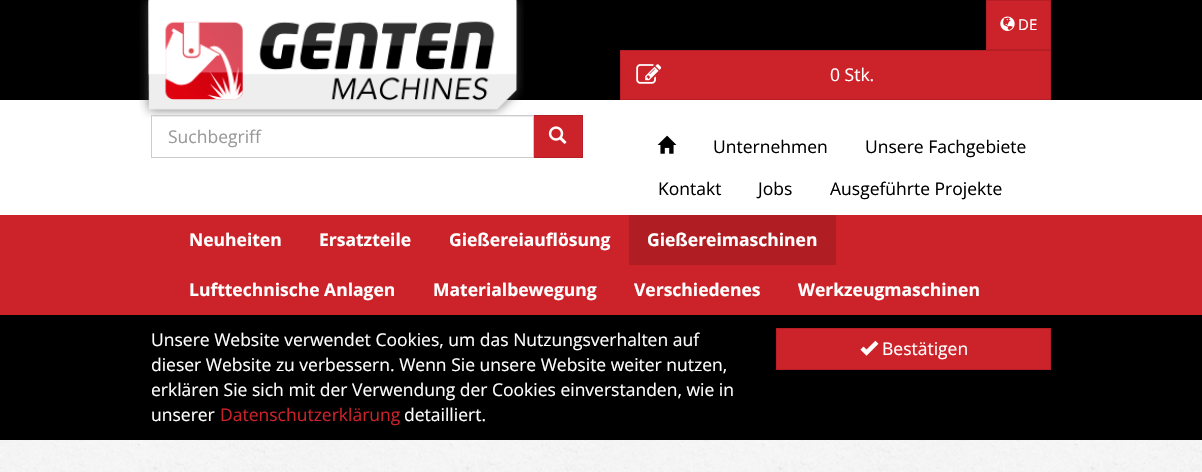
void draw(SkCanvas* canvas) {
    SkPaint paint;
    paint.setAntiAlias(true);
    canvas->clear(0xFFFFFFFF);
    canvas->drawImageRect(SkImages::DeferredFromEncodedData(SkData::MakeFromFileName("img1.png")), SkRect::MakeXYWH(0, 440, 1202, 32), SkSamplingOptions());
    paint.setColor(0xFF000000);
    canvas->drawRect(SkRect::MakeXYWH(0, 0, 1202, 100), paint);
    canvas->drawImageRect(SkImages::DeferredFromEncodedData(SkData::MakeFromFileName("img2.png")), SkRect::MakeXYWH(139, 0, 385, 118), SkSamplingOptions());
    paint.setColor(0xFFCC2229);
    canvas->drawRect(SkRect::MakeXYWH(986.5f, 0.5f, 64, 49), paint);
    paint.setStyle(SkPaint::kStroke_Style);
    paint.setStrokeWidth(1);
    paint.setColor(0xFFB61E25);
    canvas->drawRect(SkRect::MakeXYWH(986.5f, 0.5f, 64, 49), paint);
    canvas->drawImageRect(SkImages::DeferredFromEncodedData(SkData::MakeFromFileName("img3.png")), SkRect::MakeXYWH(1000, 16, 15, 15), SkSamplingOptions());
    SkFont font1(fontMgr->matchFamilyStyle("Open Sans", SkFontStyle::Normal()), 15);
    font1.setSubpixel(true);
    paint.setStyle(SkPaint::kFill_Style);
    paint.setColor(0xFFFFFFFF);
    canvas->drawString("DE", 1018, 30, font1, paint);
    paint.setColor(0xFFCC2229);
    canvas->drawRect(SkRect::MakeXYWH(620.5f, 50.5f, 430, 49), paint);
    paint.setStyle(SkPaint::kStroke_Style);
    paint.setColor(0xFFB61E25);
    canvas->drawRect(SkRect::MakeXYWH(620.5f, 50.5f, 430, 49), paint);
    canvas->drawImageRect(SkImages::DeferredFromEncodedData(SkData::MakeFromFileName("img4.png")), SkRect::MakeXYWH(636, 64, 26, 20), SkSamplingOptions());
    SkFont font2(fontMgr->matchFamilyStyle("Open Sans", SkFontStyle::Normal()), 17.5f);
    font2.setSubpixel(true);
    paint.setStyle(SkPaint::kFill_Style);
    paint.setColor(0xFFFFFFFF);
    canvas->drawString("0 Stk.", 830, 81, font2, paint);
    canvas->drawRect(SkRect::MakeXYWH(152, 116, 352, 2), paint);
    paint.setColor(0xFFECECEC);
    canvas->drawRect(SkRect::MakeXYWH(153, 116, 380, 1), paint);
    paint.setColor(0xFFCC2229);
    canvas->drawRect(SkRect::MakeXYWH(533.5f, 115.5f, 49, 42), paint);
    paint.setStyle(SkPaint::kStroke_Style);
    paint.setColor(0xFFB61E25);
    canvas->drawRect(SkRect::MakeXYWH(533.5f, 115.5f, 49, 42), paint);
    paint.setColor(0xFFCCCCCC);
    canvas->drawRect(SkRect::MakeXYWH(151.5f, 115.5f, 382, 42), paint);
    paint.setStyle(SkPaint::kFill_Style);
    paint.setColor(0xFF999999);
    canvas->drawString("Suchbegriff", 168, 143, font2, paint);
    canvas->drawImageRect(SkImages::DeferredFromEncodedData(SkData::MakeFromFileName("img5.png")), SkRect::MakeXYWH(548, 126, 19, 18), SkSamplingOptions());
    canvas->drawImageRect(SkImages::DeferredFromEncodedData(SkData::MakeFromFileName("img6.png")), SkRect::MakeXYWH(657, 135, 20, 19), SkSamplingOptions());
    paint.setColor(0xFF000000);
    canvas->drawString("Unternehmen", 713, 153, font2, paint);
    canvas->drawString("Unsere Fachgebiete", 865, 153, font2, paint);
    canvas->drawString("Kontakt", 658, 195, font2, paint);
    canvas->drawString("Jobs", 758, 195, font2, paint);
    canvas->drawString("Ausgeführte Projekte", 830, 195, font2, paint);
    paint.setColor(0xFFCC2229);
    canvas->drawRect(SkRect::MakeXYWH(0, 215, 1202, 100), paint);
    SkFont font3(fontMgr->matchFamilyStyle("Open Sans", SkFontStyle::Bold()), 17.5f);
    font3.setSubpixel(true);
    paint.setColor(0xFFFFFFFF);
    canvas->drawString("Neuheiten", 189, 246, font3, paint);
    canvas->drawString("Ersatzteile", 319, 246, font3, paint);
    canvas->drawString("Gießereiauflösung", 449, 246, font3, paint);
    paint.setColor(0xFFB01D23);
    canvas->drawRect(SkRect::MakeXYWH(629, 215, 207, 50), paint);
    paint.setColor(0xFFFFFFFF);
    canvas->drawString("Gießereimaschinen", 647, 246, font3, paint);
    canvas->drawString("Lufttechnische Anlagen", 189, 296, font3, paint);
    canvas->drawString("Materialbewegung", 433, 296, font3, paint);
    canvas->drawString("Verschiedenes", 634, 296, font3, paint);
    canvas->drawString("Werkzeugmaschinen", 798, 296, font3, paint);
    paint.setColor(0xFF000000);
    canvas->drawRect(SkRect::MakeXYWH(0, 315, 1202, 125), paint);
    paint.setColor(0xFFFFFFFF);
    canvas->drawString("Unsere Website verwendet Cookies, um das Nutzungsverhalten auf", 151, 346, font2, paint);
    canvas->drawString("dieser Website zu verbessern. Wenn Sie unsere Website weiter nutzen,", 151, 371, font2, paint);
    canvas->drawString("erklären Sie sich mit der Verwendung der Cookies einverstanden, wie in", 151, 396, font2, paint);
    canvas->drawString("unserer", 151, 421, font2, paint);
    paint.setColor(0xFFCC2229);
    canvas->drawString("Datenschutzerklärung", 220, 421, font2, paint);
    paint.setColor(0xFFFFFFFF);
    canvas->drawString("detailliert.", 404, 421, font2, paint);
    paint.setColor(0xFFCC2229);
    canvas->drawRect(SkRect::MakeXYWH(776.5f, 328.5f, 274, 41), paint);
    paint.setStyle(SkPaint::kStroke_Style);
    paint.setColor(0xFFB61E25);
    canvas->drawRect(SkRect::MakeXYWH(776.5f, 328.5f, 274, 41), paint);
    canvas->drawImageRect(SkImages::DeferredFromEncodedData(SkData::MakeFromFileName("img7.png")), SkRect::MakeXYWH(860, 340, 19, 16), SkSamplingOptions());
    paint.setStyle(SkPaint::kFill_Style);
    paint.setColor(0xFFFFFFFF);
    canvas->drawString("Bestätigen", 882, 355, font2, paint);
}
